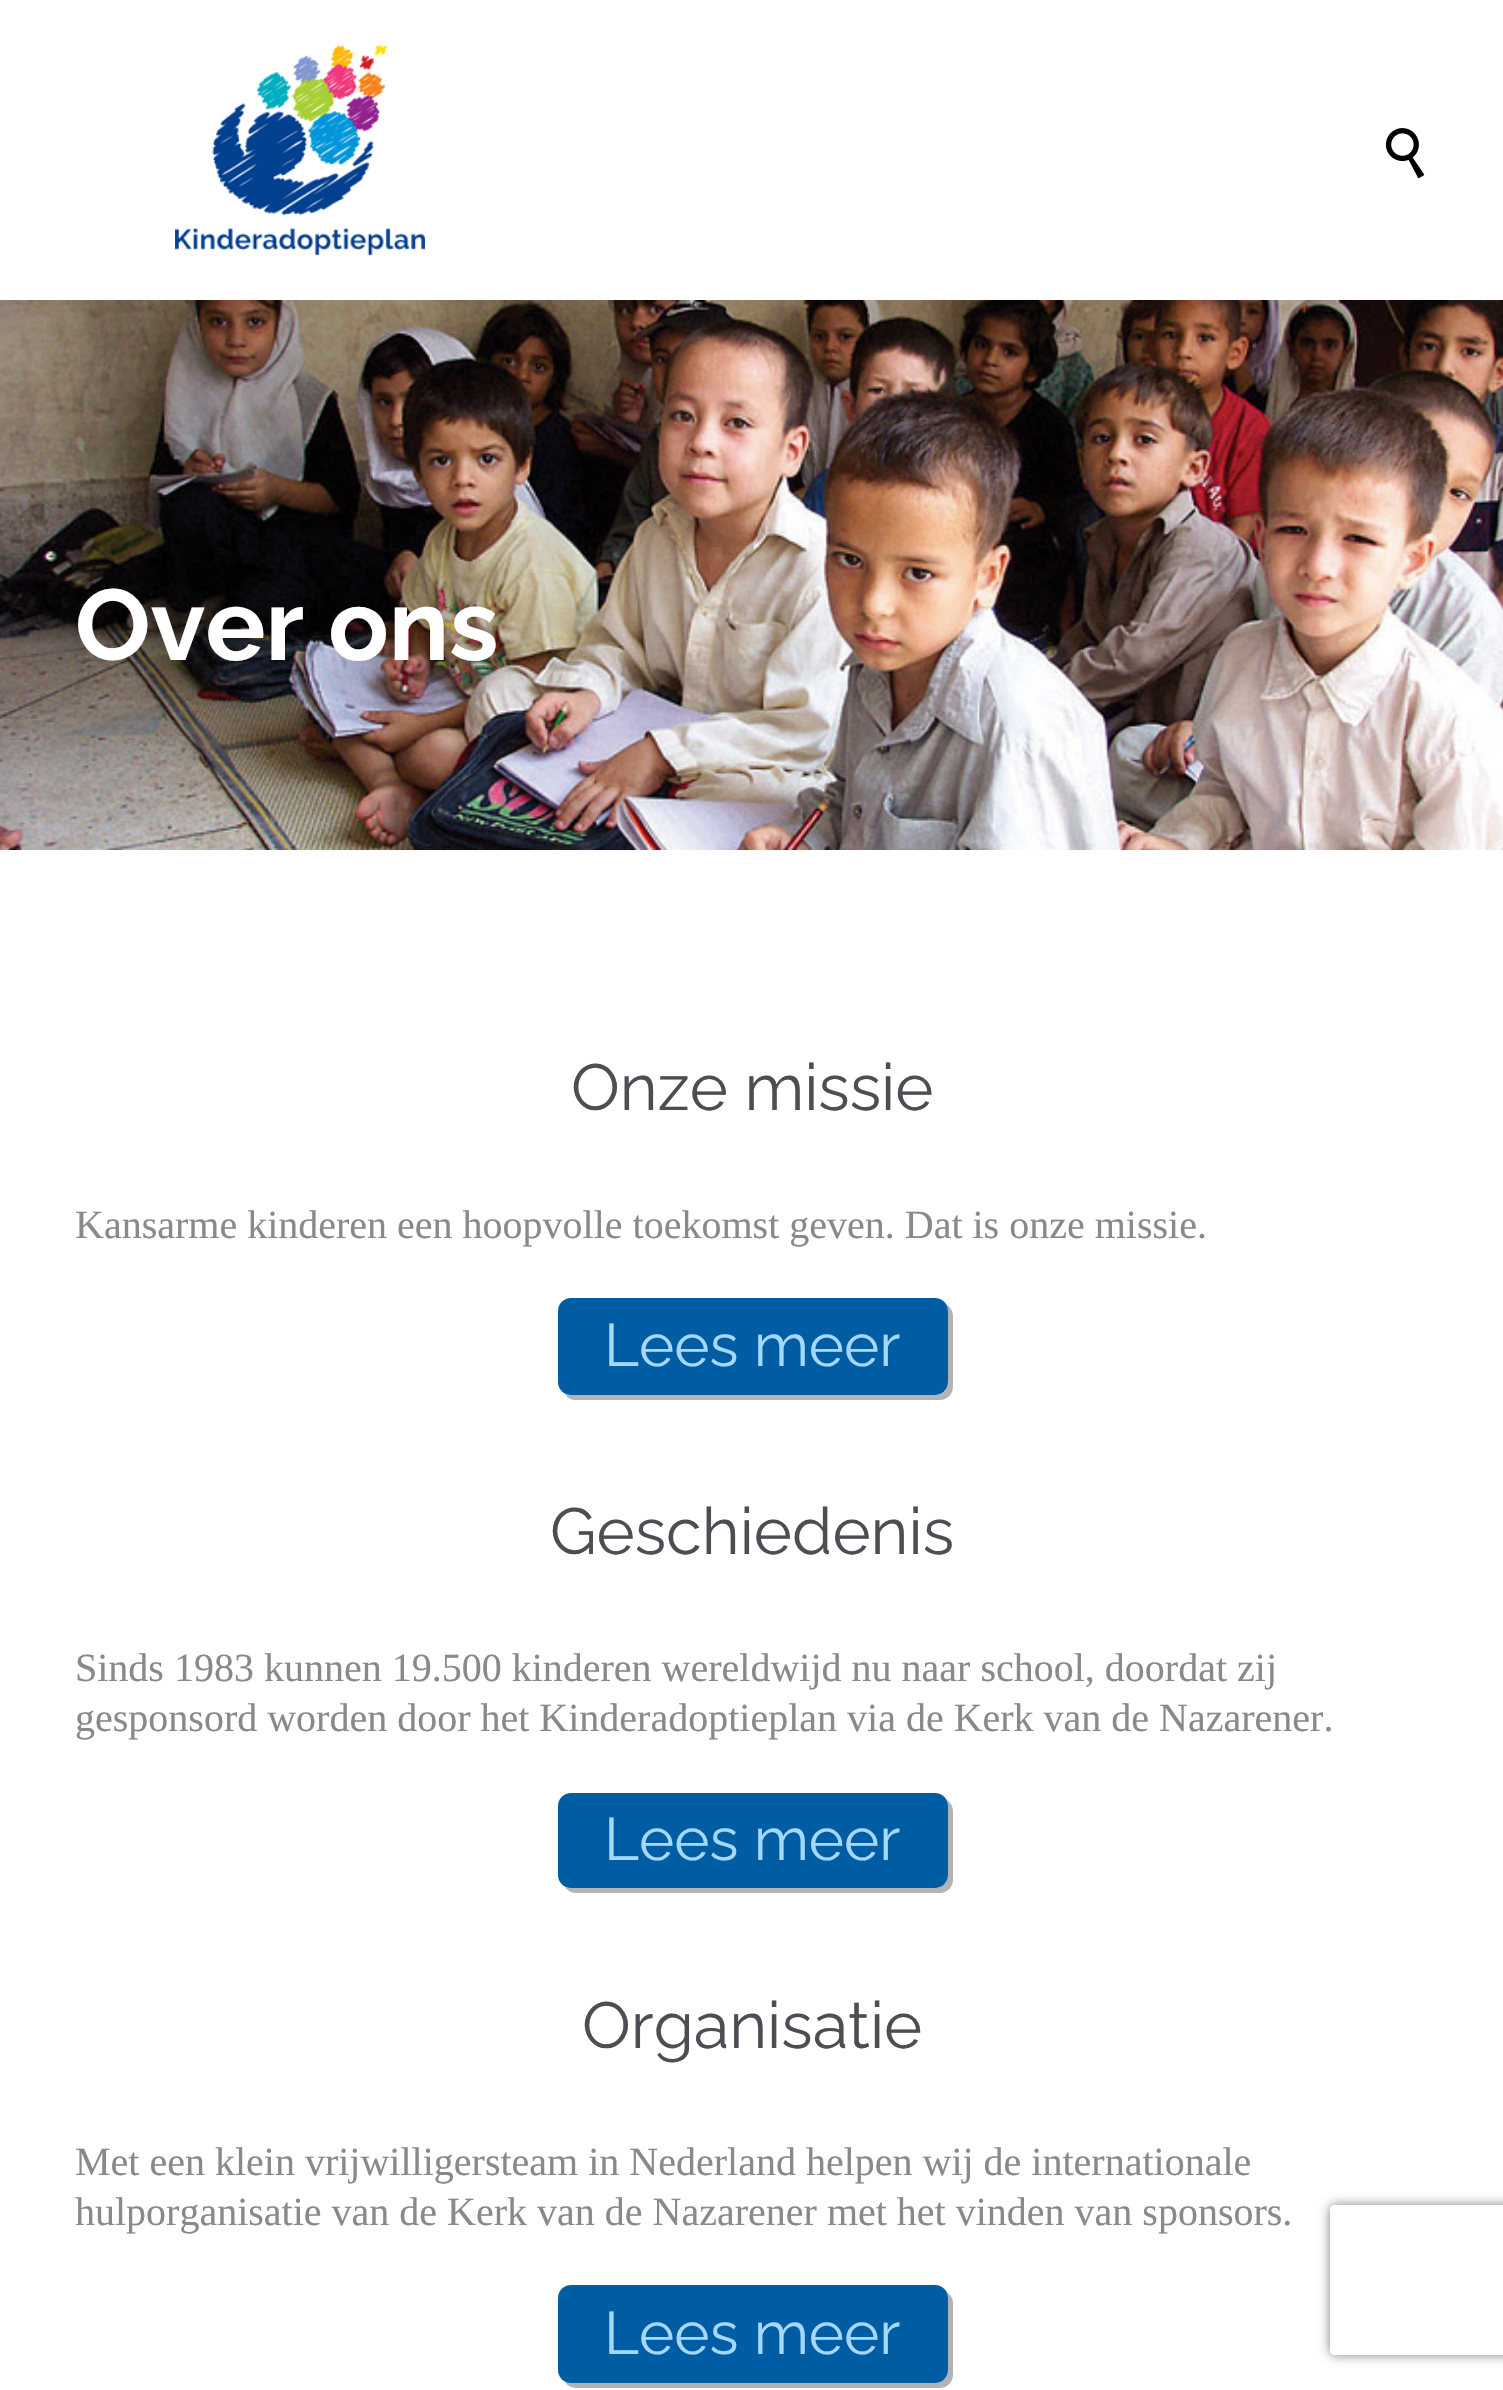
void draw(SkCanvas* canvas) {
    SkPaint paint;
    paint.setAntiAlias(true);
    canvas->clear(0xFFFFFFFF);
    canvas->drawImageRect(SkImages::DeferredFromEncodedData(SkData::MakeFromFileName("img1.png")), SkRect::MakeXYWH(175, 44, 250, 212), SkSamplingOptions());
    canvas->drawImageRect(SkImages::DeferredFromEncodedData(SkData::MakeFromFileName("img2.png")), SkRect::MakeXYWH(1385, 128, 40, 51), SkSamplingOptions());
    canvas->drawImageRect(SkImages::DeferredFromEncodedData(SkData::MakeFromFileName("img3.png")), SkRect::MakeXYWH(0, 300, 1503, 550), SkSamplingOptions());
    SkFont font1(fontMgr->matchFamilyStyle("Raleway", SkFontStyle::Bold()), 100);
    font1.setSubpixel(true);
    paint.setColor(0xFFFFFFFF);
    canvas->drawString("Over ons", 75, 660, font1, paint);
    SkFont font2(fontMgr->matchFamilyStyle("Raleway", SkFontStyle::Normal()), 65);
    font2.setSubpixel(true);
    paint.setColor(0xFF4D4E53);
    canvas->drawString("Onze missie", 571, 1110, font2, paint);
    SkFont font3(fontMgr->matchFamilyStyle("Liberation Serif", SkFontStyle::Normal()), 40);
    font3.setSubpixel(true);
    paint.setColor(0xFF898989);
    canvas->drawString("Kansarme kinderen een hoopvolle toekomst geven. Dat is onze missie.", 75, 1238, font3, paint);
    paint.setColor(0xFFB3B3B3);
    canvas->drawPath(SkPathBuilder().moveTo(565, 1394).cubicTo(568, 1398, 571, 1400, 576, 1400).lineTo(940, 1400).cubicTo(947, 1400, 953, 1394, 953, 1387).lineTo(953, 1316).cubicTo(953, 1311, 950, 1307, 947, 1305).lineTo(948, 1310).lineTo(948, 1383).cubicTo(948, 1390, 942, 1395, 936, 1395).lineTo(570, 1395).close().detach(), paint);
    paint.setColor(0xFF005DA4);
    canvas->drawRoundRect(SkRect::MakeXYWH(558, 1298, 390, 97), 13, 13, paint);
    SkFont font4(fontMgr->matchFamilyStyle("Raleway", SkFontStyle::Normal()), 60);
    font4.setSubpixel(true);
    paint.setColor(0xFFA4D8FF);
    canvas->drawString("Lees meer", 604, 1366, font4, paint);
    paint.setColor(0xFF4D4E53);
    canvas->drawString("Geschiedenis", 550, 1554, font2, paint);
    paint.setColor(0xFF898989);
    canvas->drawString("Sinds 1983 kunnen 19.500 kinderen wereldwijd nu naar school, doordat zij", 75, 1681, font3, paint);
    canvas->drawString("gesponsord worden door het Kinderadoptieplan via de Kerk van de Nazarener.", 75, 1731, font3, paint);
    paint.setColor(0xFFB3B3B3);
    canvas->drawPath(SkPathBuilder().moveTo(565, 1887).cubicTo(567, 1890, 571, 1893, 576, 1893).lineTo(940, 1893).cubicTo(947, 1893, 953, 1887, 953, 1880).lineTo(953, 1811).cubicTo(953, 1806, 950, 1802, 947, 1800).lineTo(948, 1804).lineTo(948, 1876).cubicTo(948, 1882, 942, 1888, 936, 1888).lineTo(570, 1888).close().detach(), paint);
    paint.setColor(0xFF005DA4);
    canvas->drawRoundRect(SkRect::MakeXYWH(558, 1793, 390, 95), 13, 13, paint);
    paint.setColor(0xFFA4D8FF);
    canvas->drawString("Lees meer", 604, 1860, font4, paint);
    paint.setColor(0xFF4D4E53);
    canvas->drawString("Organisatie", 582, 2048, font2, paint);
    paint.setColor(0xFF898989);
    canvas->drawString("Met een klein vrijwilligersteam in Nederland helpen wij de internationale", 75, 2175, font3, paint);
    canvas->drawString("hulporganisatie van de Kerk van de Nazarener met het vinden van sponsors.", 75, 2225, font3, paint);
    paint.setColor(0xFFB3B3B3);
    canvas->drawPath(SkPathBuilder().moveTo(565, 2382).cubicTo(567, 2385, 571, 2388, 576, 2388).lineTo(940, 2388).cubicTo(947, 2388, 953, 2382, 953, 2375).lineTo(953, 2303).cubicTo(953, 2298, 950, 2294, 946, 2292).cubicTo(947, 2293, 948, 2295, 948, 2297).lineTo(948, 2370).cubicTo(948, 2377, 942, 2382, 936, 2382).lineTo(570, 2382).close().detach(), paint);
    paint.setColor(0xFF005DA4);
    canvas->drawRoundRect(SkRect::MakeXYWH(558, 2285, 390, 98), 13, 13, paint);
    paint.setColor(0xFFA4D8FF);
    canvas->drawString("Lees meer", 604, 2354, font4, paint);
    canvas->save();
    canvas->clipPath(SkPathBuilder(SkPathFillType::kEvenOdd).moveTo(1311, 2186).lineTo(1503, 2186).lineTo(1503, 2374).lineTo(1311, 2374).close().moveTo(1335, 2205).lineTo(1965, 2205).cubicTo(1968, 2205, 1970, 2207, 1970, 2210).lineTo(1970, 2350).cubicTo(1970, 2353, 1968, 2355, 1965, 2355).lineTo(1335, 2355).cubicTo(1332, 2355, 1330, 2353, 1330, 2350).lineTo(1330, 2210).cubicTo(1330, 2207, 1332, 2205, 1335, 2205).close().detach(), true);
    paint.setColor(0xFF808080);
    paint.setMaskFilter(SkMaskFilter::MakeBlur(kNormal_SkBlurStyle, 6));
    canvas->drawRoundRect(SkRect::MakeXYWH(1330, 2205, 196, 150), 5, 5, paint);
    paint.setMaskFilter(nullptr);
    canvas->restore();
}
